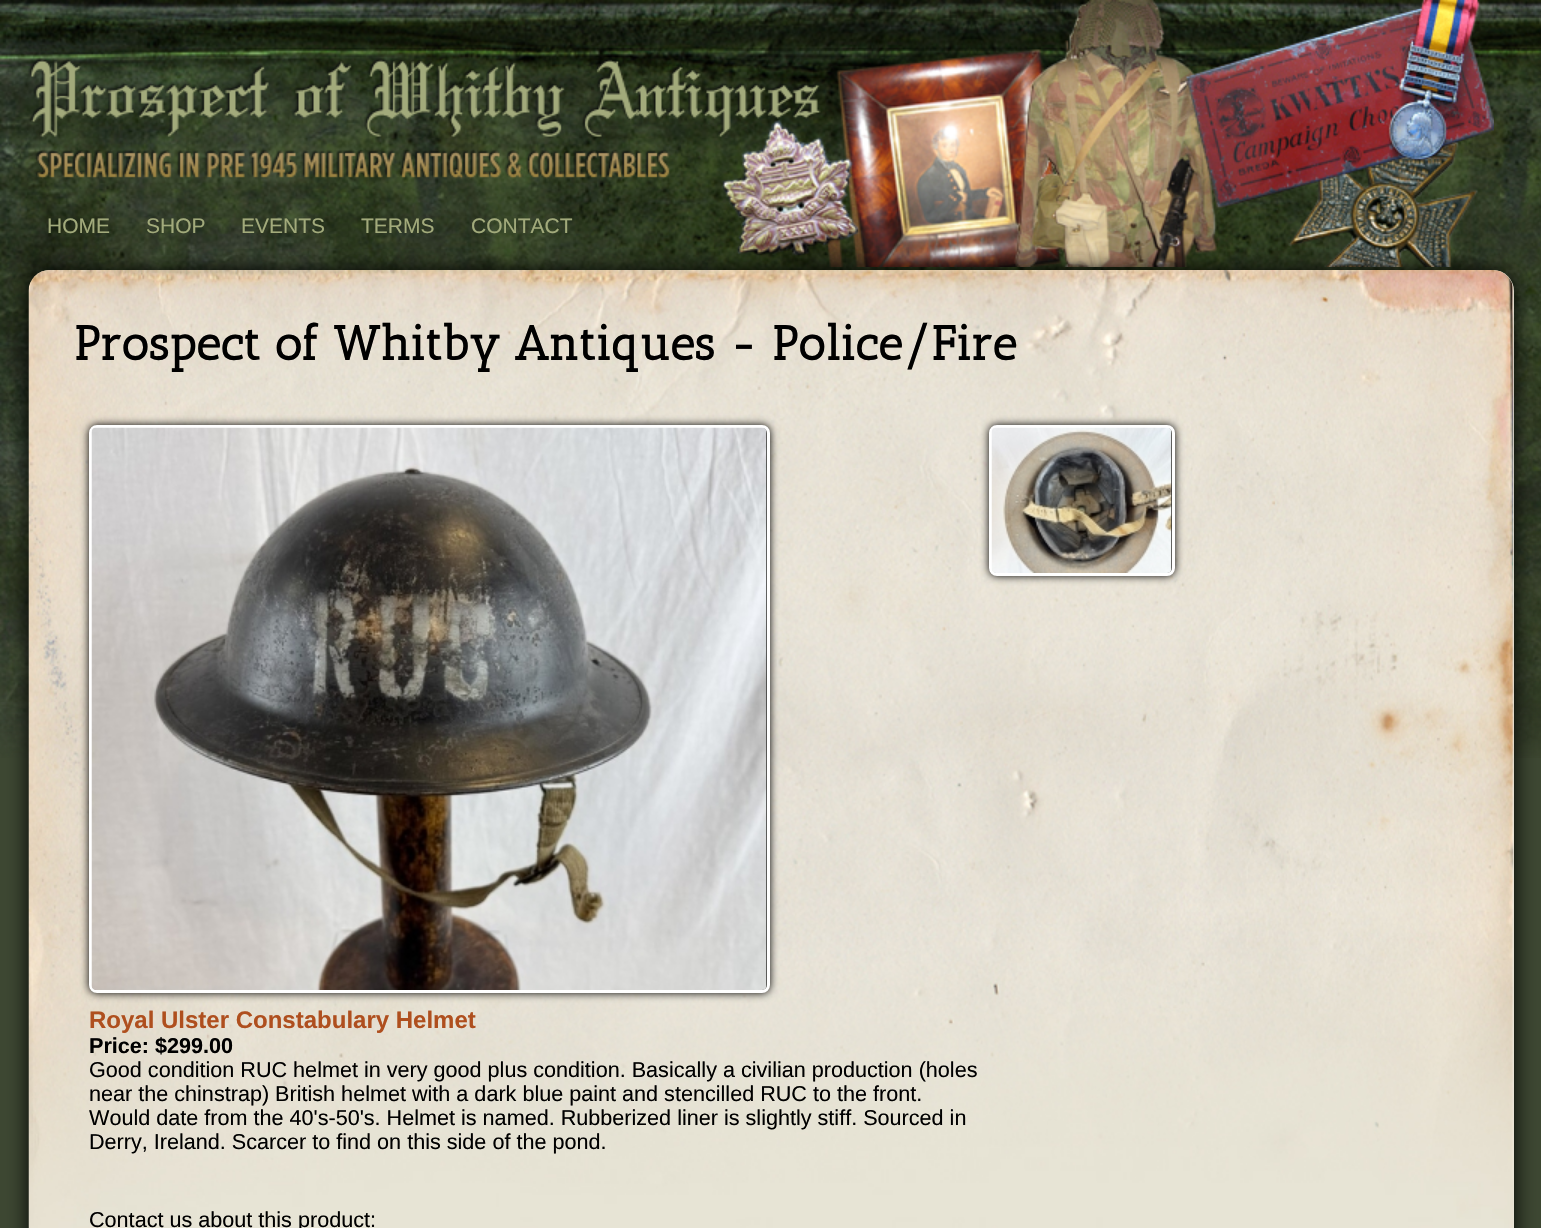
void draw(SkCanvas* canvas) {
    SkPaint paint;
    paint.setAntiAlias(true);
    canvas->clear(0xFF3D4732);
    canvas->drawImageRect(SkImages::DeferredFromEncodedData(SkData::MakeFromFileName("img1.png")), SkRect::MakeXYWH(0, 0, 1541, 758), SkSamplingOptions());
    canvas->drawImageRect(SkImages::DeferredFromEncodedData(SkData::MakeFromFileName("img2.png")), SkRect::MakeXYWH(28, 0, 1466, 267), SkSamplingOptions());
    SkFont font1(fontMgr->matchFamilyStyle("Liberation Sans", SkFontStyle::Normal()), 21);
    font1.setSubpixel(true);
    paint.setColor(0xFFA2AA7B);
    canvas->drawString("HOME", 47, 233, font1, paint);
    canvas->drawString("SHOP", 146, 233, font1, paint);
    canvas->drawString("EVENTS", 241, 233, font1, paint);
    canvas->drawString("TERMS", 361, 233, font1, paint);
    canvas->drawString("CONTACT", 471, 233, font1, paint);
    paint.setColor(0xFF000000);
    paint.setMaskFilter(SkMaskFilter::MakeBlur(kNormal_SkBlurStyle, 11));
    canvas->drawRoundRect(SkRect::MakeXYWH(29, 270, 1485, 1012), 21, 21, paint);
    paint.setMaskFilter(nullptr);
    paint.setColor(0xFFE8E5D7);
    canvas->drawRoundRect(SkRect::MakeXYWH(29, 270, 1485, 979), 21, 21, paint);
    canvas->drawImageRect(SkImages::DeferredFromEncodedData(SkData::MakeFromFileName("img3.png")), SkRect::MakeXYWH(28, 270, 1486, 958), SkSamplingOptions());
    SkFont font2(fontMgr->matchFamilyStyle("Antic Slab", SkFontStyle::Bold()), 48);
    font2.setSubpixel(true);
    paint.setColor(0xFF000000);
    canvas->drawString("Prospect of Whitby Antiques - Police/Fire", 74, 360, font2, paint);
    paint.setMaskFilter(SkMaskFilter::MakeBlur(kNormal_SkBlurStyle, 4));
    canvas->drawRoundRect(SkRect::MakeXYWH(89, 425, 681, 568), 8, 8, paint);
    paint.setMaskFilter(nullptr);
    paint.setStyle(SkPaint::kStroke_Style);
    paint.setStrokeWidth(3);
    paint.setColor(0xFFFFFFFF);
    canvas->drawRoundRect(SkRect::MakeXYWH(90.5f, 426.5f, 678, 565), 6.5f, 6.5f, paint);
    canvas->drawImageRect(SkImages::DeferredFromEncodedData(SkData::MakeFromFileName("img4.png")), SkRect::MakeXYWH(91, 427, 676, 563), SkSamplingOptions());
    SkFont font3(fontMgr->matchFamilyStyle("Liberation Sans", SkFontStyle::Bold()), 24);
    font3.setSubpixel(true);
    paint.setStyle(SkPaint::kFill_Style);
    paint.setColor(0xFFAF4F1E);
    canvas->drawString("Royal Ulster Constabulary Helmet", 89, 1028, font3, paint);
    SkFont font4(fontMgr->matchFamilyStyle("Liberation Sans", SkFontStyle::Bold()), 21.6f);
    font4.setSubpixel(true);
    paint.setColor(0xFF000000);
    canvas->drawString("Price: $299.00", 89, 1053, font4, paint);
    SkFont font5(fontMgr->matchFamilyStyle("Liberation Sans", SkFontStyle::Normal()), 21.6f);
    font5.setSubpixel(true);
    canvas->drawString("Good condition RUC helmet in very good plus condition. Basically a civilian production (holes", 89, 1077, font5, paint);
    canvas->drawString("near the chinstrap) British helmet with a dark blue paint and stencilled RUC to the front.", 89, 1101, font5, paint);
    canvas->drawString("Would date from the 40's-50's. Helmet is named. Rubberized liner is slightly stiff. Sourced in", 89, 1125, font5, paint);
    canvas->drawString("Derry, Ireland. Scarcer to find on this side of the pond.", 89, 1149, font5, paint);
    canvas->drawString("Contact us about this product:", 89, 1227, font5, paint);
    paint.setMaskFilter(SkMaskFilter::MakeBlur(kNormal_SkBlurStyle, 4));
    canvas->drawRoundRect(SkRect::MakeXYWH(989, 425, 186, 151), 8, 8, paint);
    paint.setMaskFilter(nullptr);
    paint.setStyle(SkPaint::kStroke_Style);
    paint.setColor(0xFFFFFFFF);
    canvas->drawRoundRect(SkRect::MakeXYWH(990.5f, 426.5f, 183, 148), 6.5f, 6.5f, paint);
    canvas->drawImageRect(SkImages::DeferredFromEncodedData(SkData::MakeFromFileName("img5.png")), SkRect::MakeXYWH(991, 427, 181, 146), SkSamplingOptions());
}
